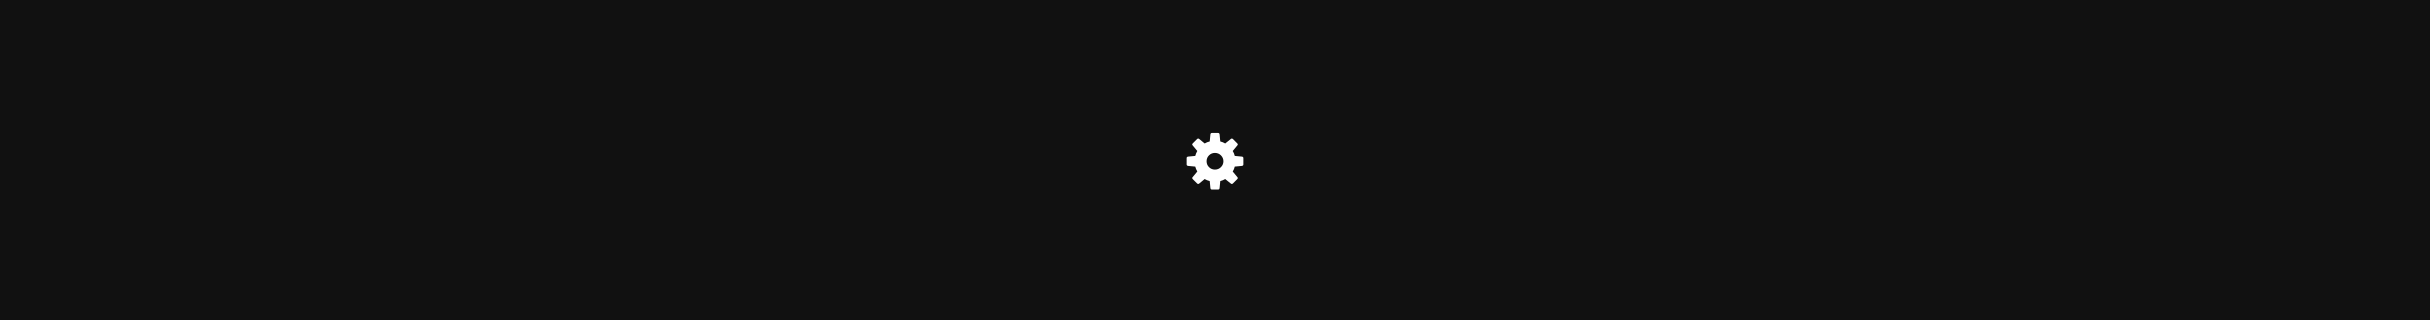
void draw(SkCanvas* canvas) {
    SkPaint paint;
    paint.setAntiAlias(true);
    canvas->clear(0xFF111111);
    canvas->drawImageRect(SkImages::DeferredFromEncodedData(SkData::MakeFromFileName("img1.png")), SkRect::MakeXYWH(1186, 132, 58, 58), SkSamplingOptions());
}
